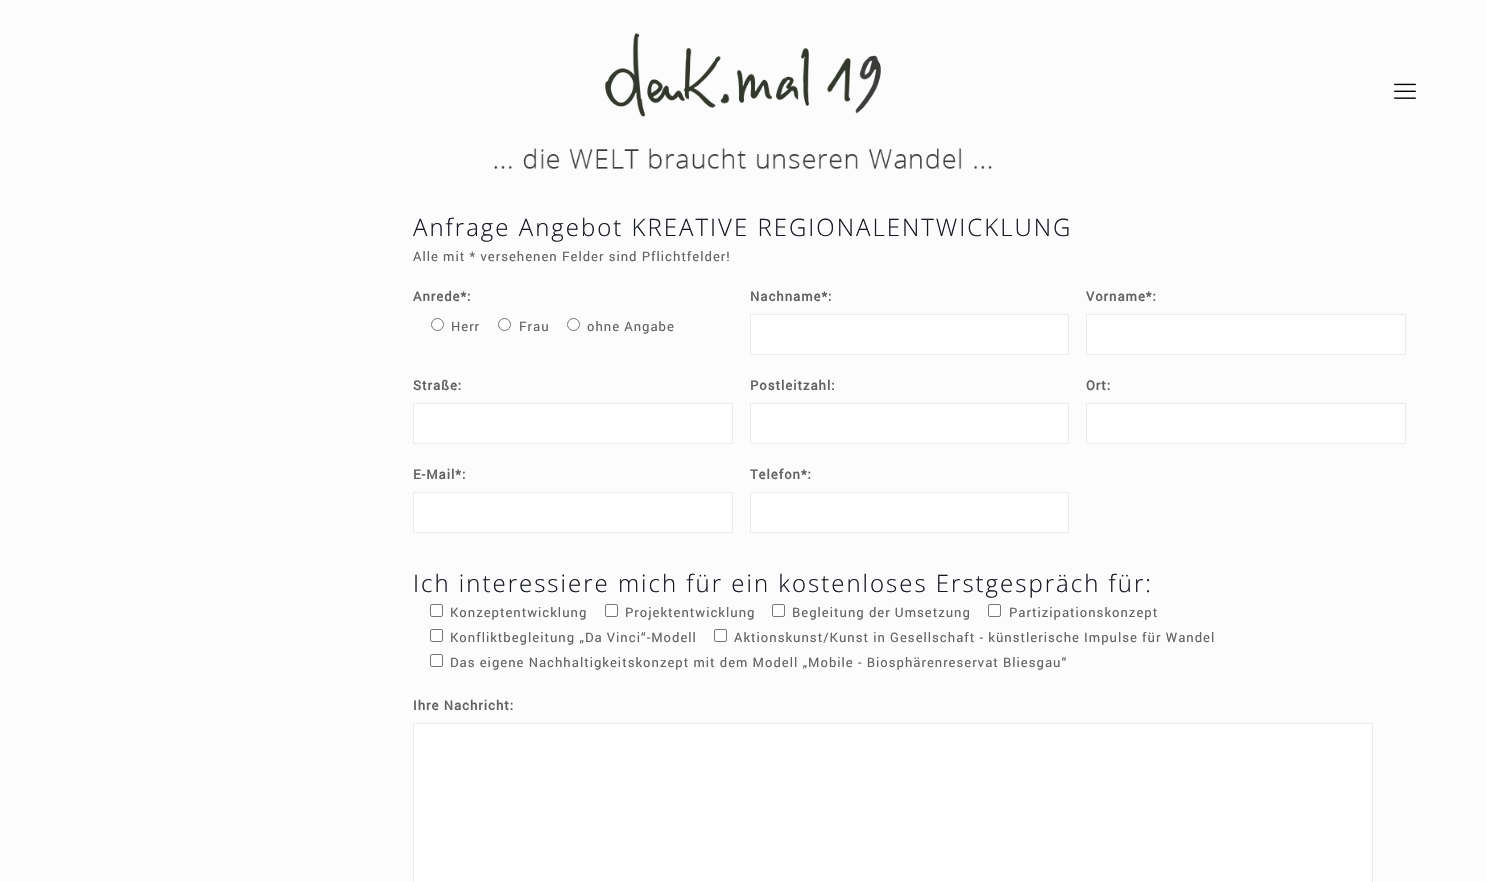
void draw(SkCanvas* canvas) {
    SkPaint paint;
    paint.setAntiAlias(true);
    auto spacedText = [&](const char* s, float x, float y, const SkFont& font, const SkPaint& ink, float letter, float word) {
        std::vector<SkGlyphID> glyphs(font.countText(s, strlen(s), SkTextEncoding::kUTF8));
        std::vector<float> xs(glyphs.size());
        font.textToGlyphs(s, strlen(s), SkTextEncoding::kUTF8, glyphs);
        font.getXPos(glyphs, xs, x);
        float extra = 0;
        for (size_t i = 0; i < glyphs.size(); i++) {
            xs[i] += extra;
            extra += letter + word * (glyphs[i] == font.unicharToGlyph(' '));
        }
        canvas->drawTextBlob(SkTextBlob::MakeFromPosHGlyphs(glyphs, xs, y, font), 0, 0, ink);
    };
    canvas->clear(0xFFFCFCFC);
    canvas->drawImageRect(SkImages::DeferredFromEncodedData(SkData::MakeFromFileName("img1.png")), SkRect::MakeXYWH(494, 33, 498, 136), SkSamplingOptions());
    canvas->drawImageRect(SkImages::DeferredFromEncodedData(SkData::MakeFromFileName("img2.png")), SkRect::MakeXYWH(1394, 83, 22, 16), SkSamplingOptions());
    SkFont font1(fontMgr->matchFamilyStyle("Open Sans", SkFontStyle(300, SkFontStyle::kNormal_Width, SkFontStyle::kUpright_Slant)), 24);
    font1.setSubpixel(true);
    paint.setColor(0xFF161922);
    spacedText("Anfrage Angebot KREATIVE REGIONALENTWICKLUNG", 413, 236, font1, paint, 2, 0);
    SkFont font2(fontMgr->matchFamilyStyle("Roboto", SkFontStyle::Normal()), 13);
    font2.setSubpixel(true);
    paint.setColor(0xFF626262);
    spacedText("Alle mit * versehenen Felder sind Pflichtfelder!", 413, 261, font2, paint, 1, 0);
    SkFont font3(fontMgr->matchFamilyStyle("Roboto", SkFontStyle::Bold()), 13);
    font3.setSubpixel(true);
    spacedText("Anrede*:", 413, 301, font3, paint, 1, 0);
    paint.setColor(0xFFFFFFFF);
    canvas->drawCircle(437.5f, 324.5f, 6, paint);
    paint.setStyle(SkPaint::kStroke_Style);
    paint.setStrokeWidth(1);
    paint.setColor(0xFF767676);
    canvas->drawCircle(437.5f, 324.5f, 6, paint);
    paint.setStyle(SkPaint::kFill_Style);
    paint.setColor(0xFF626262);
    spacedText("Herr", 451, 331, font2, paint, 1, 0);
    paint.setColor(0xFFFFFFFF);
    canvas->drawCircle(504.5f, 324.5f, 6, paint);
    paint.setStyle(SkPaint::kStroke_Style);
    paint.setColor(0xFF767676);
    canvas->drawCircle(504.5f, 324.5f, 6, paint);
    paint.setStyle(SkPaint::kFill_Style);
    paint.setColor(0xFF626262);
    spacedText("Frau", 519, 331, font2, paint, 1, 0);
    paint.setColor(0xFFFFFFFF);
    canvas->drawCircle(573.5f, 324.5f, 6, paint);
    paint.setStyle(SkPaint::kStroke_Style);
    paint.setColor(0xFF767676);
    canvas->drawCircle(573.5f, 324.5f, 6, paint);
    paint.setStyle(SkPaint::kFill_Style);
    paint.setColor(0xFF626262);
    spacedText("ohne Angabe", 587, 331, font2, paint, 1, 0);
    spacedText("Nachname*:", 750, 301, font3, paint, 1, 0);
    paint.setColor(0xFFFFFFFF);
    canvas->drawRect(SkRect::MakeXYWH(750.5f, 314.5f, 318, 40), paint);
    paint.setStyle(SkPaint::kStroke_Style);
    paint.setColor(0xFFEBEBEB);
    canvas->drawRect(SkRect::MakeXYWH(750.5f, 314.5f, 318, 40), paint);
    paint.setStyle(SkPaint::kFill_Style);
    paint.setColor(0xFF626262);
    spacedText("Vorname*:", 1086, 301, font3, paint, 1, 0);
    paint.setColor(0xFFFFFFFF);
    canvas->drawRect(SkRect::MakeXYWH(1086.5f, 314.5f, 319, 40), paint);
    paint.setStyle(SkPaint::kStroke_Style);
    paint.setColor(0xFFEBEBEB);
    canvas->drawRect(SkRect::MakeXYWH(1086.5f, 314.5f, 319, 40), paint);
    paint.setStyle(SkPaint::kFill_Style);
    paint.setColor(0xFF626262);
    spacedText("Straße:", 413, 390, font3, paint, 1, 0);
    paint.setColor(0xFFFFFFFF);
    canvas->drawRect(SkRect::MakeXYWH(413.5f, 403.5f, 319, 40), paint);
    paint.setStyle(SkPaint::kStroke_Style);
    paint.setColor(0xFFEBEBEB);
    canvas->drawRect(SkRect::MakeXYWH(413.5f, 403.5f, 319, 40), paint);
    paint.setStyle(SkPaint::kFill_Style);
    paint.setColor(0xFF626262);
    spacedText("Postleitzahl:", 750, 390, font3, paint, 1, 0);
    paint.setColor(0xFFFFFFFF);
    canvas->drawRect(SkRect::MakeXYWH(750.5f, 403.5f, 318, 40), paint);
    paint.setStyle(SkPaint::kStroke_Style);
    paint.setColor(0xFFEBEBEB);
    canvas->drawRect(SkRect::MakeXYWH(750.5f, 403.5f, 318, 40), paint);
    paint.setStyle(SkPaint::kFill_Style);
    paint.setColor(0xFF626262);
    spacedText("Ort:", 1086, 390, font3, paint, 1, 0);
    paint.setColor(0xFFFFFFFF);
    canvas->drawRect(SkRect::MakeXYWH(1086.5f, 403.5f, 319, 40), paint);
    paint.setStyle(SkPaint::kStroke_Style);
    paint.setColor(0xFFEBEBEB);
    canvas->drawRect(SkRect::MakeXYWH(1086.5f, 403.5f, 319, 40), paint);
    paint.setStyle(SkPaint::kFill_Style);
    paint.setColor(0xFF626262);
    spacedText("E-Mail*:", 413, 479, font3, paint, 1, 0);
    paint.setColor(0xFFFFFFFF);
    canvas->drawRect(SkRect::MakeXYWH(413.5f, 492.5f, 319, 40), paint);
    paint.setStyle(SkPaint::kStroke_Style);
    paint.setColor(0xFFEBEBEB);
    canvas->drawRect(SkRect::MakeXYWH(413.5f, 492.5f, 319, 40), paint);
    paint.setStyle(SkPaint::kFill_Style);
    paint.setColor(0xFF626262);
    spacedText("Telefon*:", 750, 479, font3, paint, 1, 0);
    paint.setColor(0xFFFFFFFF);
    canvas->drawRect(SkRect::MakeXYWH(750.5f, 492.5f, 318, 40), paint);
    paint.setStyle(SkPaint::kStroke_Style);
    paint.setColor(0xFFEBEBEB);
    canvas->drawRect(SkRect::MakeXYWH(750.5f, 492.5f, 318, 40), paint);
    paint.setStyle(SkPaint::kFill_Style);
    paint.setColor(0xFF161922);
    spacedText("Ich interessiere mich für ein kostenloses Erstgespräch für:", 413, 592, font1, paint, 2, 0);
    paint.setColor(0xFFFFFFFF);
    canvas->drawRoundRect(SkRect::MakeXYWH(430.5f, 604.5f, 12, 12), 1.5f, 1.5f, paint);
    paint.setStyle(SkPaint::kStroke_Style);
    paint.setColor(0xFF767676);
    canvas->drawRoundRect(SkRect::MakeXYWH(430.5f, 604.5f, 12, 12), 1.5f, 1.5f, paint);
    paint.setStyle(SkPaint::kFill_Style);
    paint.setColor(0xFF626262);
    spacedText("Konzeptentwicklung", 450, 617, font2, paint, 1, 0);
    paint.setColor(0xFFFFFFFF);
    canvas->drawRoundRect(SkRect::MakeXYWH(605.5f, 604.5f, 12, 12), 1.5f, 1.5f, paint);
    paint.setStyle(SkPaint::kStroke_Style);
    paint.setColor(0xFF767676);
    canvas->drawRoundRect(SkRect::MakeXYWH(605.5f, 604.5f, 12, 12), 1.5f, 1.5f, paint);
    paint.setStyle(SkPaint::kFill_Style);
    paint.setColor(0xFF626262);
    spacedText("Projektentwicklung", 625, 617, font2, paint, 1, 0);
    paint.setColor(0xFFFFFFFF);
    canvas->drawRoundRect(SkRect::MakeXYWH(772.5f, 604.5f, 12, 12), 1.5f, 1.5f, paint);
    paint.setStyle(SkPaint::kStroke_Style);
    paint.setColor(0xFF767676);
    canvas->drawRoundRect(SkRect::MakeXYWH(772.5f, 604.5f, 12, 12), 1.5f, 1.5f, paint);
    paint.setStyle(SkPaint::kFill_Style);
    paint.setColor(0xFF626262);
    spacedText("Begleitung der Umsetzung", 792, 617, font2, paint, 1, 0);
    paint.setColor(0xFFFFFFFF);
    canvas->drawRoundRect(SkRect::MakeXYWH(988.5f, 604.5f, 12, 12), 1.5f, 1.5f, paint);
    paint.setStyle(SkPaint::kStroke_Style);
    paint.setColor(0xFF767676);
    canvas->drawRoundRect(SkRect::MakeXYWH(988.5f, 604.5f, 12, 12), 1.5f, 1.5f, paint);
    paint.setStyle(SkPaint::kFill_Style);
    paint.setColor(0xFF626262);
    spacedText("Partizipationskonzept", 1009, 617, font2, paint, 1, 0);
    paint.setColor(0xFFFFFFFF);
    canvas->drawRoundRect(SkRect::MakeXYWH(430.5f, 629.5f, 12, 12), 1.5f, 1.5f, paint);
    paint.setStyle(SkPaint::kStroke_Style);
    paint.setColor(0xFF767676);
    canvas->drawRoundRect(SkRect::MakeXYWH(430.5f, 629.5f, 12, 12), 1.5f, 1.5f, paint);
    paint.setStyle(SkPaint::kFill_Style);
    paint.setColor(0xFF626262);
    spacedText("Konfliktbegleitung „Da Vinci“-Modell", 450, 642, font2, paint, 1, 0);
    paint.setColor(0xFFFFFFFF);
    canvas->drawRoundRect(SkRect::MakeXYWH(714.5f, 629.5f, 12, 12), 1.5f, 1.5f, paint);
    paint.setStyle(SkPaint::kStroke_Style);
    paint.setColor(0xFF767676);
    canvas->drawRoundRect(SkRect::MakeXYWH(714.5f, 629.5f, 12, 12), 1.5f, 1.5f, paint);
    paint.setStyle(SkPaint::kFill_Style);
    paint.setColor(0xFF626262);
    spacedText("Aktionskunst/Kunst in Gesellschaft - künstlerische Impulse für Wandel", 734, 642, font2, paint, 1, 0);
    paint.setColor(0xFFFFFFFF);
    canvas->drawRoundRect(SkRect::MakeXYWH(430.5f, 654.5f, 12, 12), 1.5f, 1.5f, paint);
    paint.setStyle(SkPaint::kStroke_Style);
    paint.setColor(0xFF767676);
    canvas->drawRoundRect(SkRect::MakeXYWH(430.5f, 654.5f, 12, 12), 1.5f, 1.5f, paint);
    paint.setStyle(SkPaint::kFill_Style);
    paint.setColor(0xFF626262);
    spacedText("Das eigene Nachhaltigkeitskonzept mit dem Modell „Mobile - Biosphärenreservat Bliesgau“", 450, 667, font2, paint, 1, 0);
    spacedText("Ihre Nachricht:", 413, 710, font3, paint, 1, 0);
    paint.setColor(0xFFFFFFFF);
    canvas->drawRect(SkRect::MakeXYWH(413.5f, 723.5f, 959, 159), paint);
    paint.setStyle(SkPaint::kStroke_Style);
    paint.setColor(0xFFEBEBEB);
    canvas->drawRect(SkRect::MakeXYWH(413.5f, 723.5f, 959, 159), paint);
}
